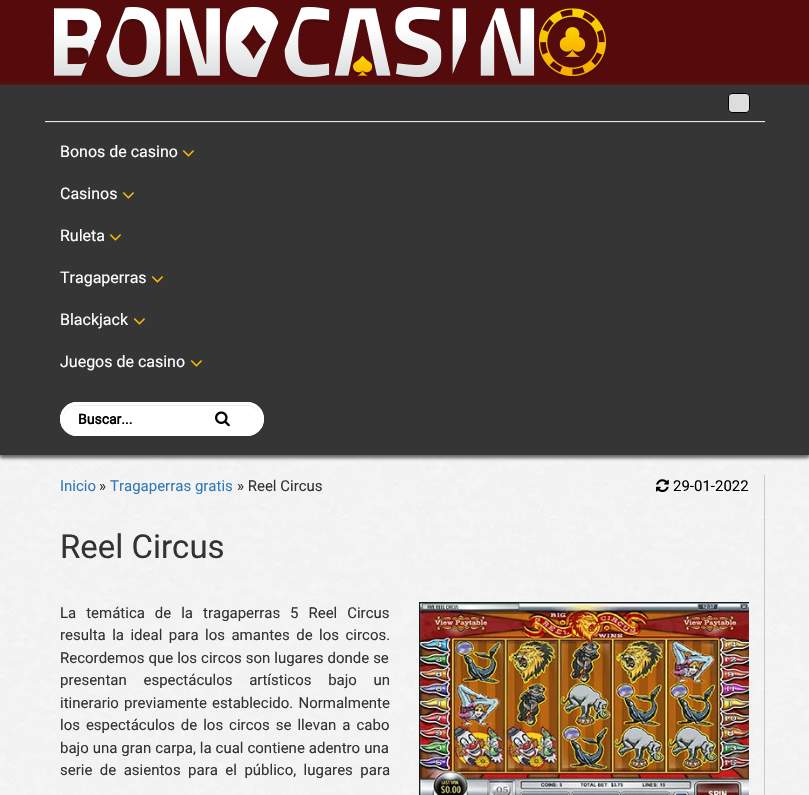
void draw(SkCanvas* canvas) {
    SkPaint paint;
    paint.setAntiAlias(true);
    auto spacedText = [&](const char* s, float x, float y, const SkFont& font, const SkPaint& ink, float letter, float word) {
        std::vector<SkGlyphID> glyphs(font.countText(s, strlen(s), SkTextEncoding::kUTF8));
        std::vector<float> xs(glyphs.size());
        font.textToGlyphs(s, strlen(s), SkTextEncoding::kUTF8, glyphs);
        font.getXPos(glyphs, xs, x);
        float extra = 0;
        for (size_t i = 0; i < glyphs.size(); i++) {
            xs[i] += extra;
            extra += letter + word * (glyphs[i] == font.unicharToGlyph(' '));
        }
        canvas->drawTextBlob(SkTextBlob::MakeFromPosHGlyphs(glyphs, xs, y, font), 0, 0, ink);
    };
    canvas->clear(0xFFFFFFFF);
    canvas->drawImageRect(SkImages::DeferredFromEncodedData(SkData::MakeFromFileName("img1.png")), SkRect::MakeXYWH(0, 455, 809, 340), SkSamplingOptions());
    paint.setColor(0xFF666666);
    paint.setMaskFilter(SkMaskFilter::MakeBlur(kNormal_SkBlurStyle, 2));
    canvas->drawRect(SkRect::MakeXYWH(0, 2, 809, 455), paint);
    paint.setMaskFilter(nullptr);
    paint.setColor(0xFF550B0B);
    canvas->drawRect(SkRect::MakeXYWH(0, 0, 809, 85), paint);
    canvas->drawImageRect(SkImages::DeferredFromEncodedData(SkData::MakeFromFileName("img2.png")), SkRect::MakeXYWH(54, 7, 552, 70), SkSamplingOptions());
    paint.setColor(0xFF666666);
    paint.setMaskFilter(SkMaskFilter::MakeBlur(kNormal_SkBlurStyle, 2));
    canvas->drawRect(SkRect::MakeXYWH(0, 87, 809, 370), paint);
    paint.setMaskFilter(nullptr);
    paint.setColor(0xFF353535);
    canvas->drawRect(SkRect::MakeXYWH(0, 85, 809, 370), paint);
    paint.setColor(0xFFDDDDDD);
    canvas->drawRoundRect(SkRect::MakeXYWH(728.5f, 93.5f, 21, 19), 3.5f, 3.5f, paint);
    paint.setStyle(SkPaint::kStroke_Style);
    paint.setStrokeWidth(1);
    paint.setColor(0xFF000000);
    canvas->drawRoundRect(SkRect::MakeXYWH(728.5f, 93.5f, 21, 19), 3.5f, 3.5f, paint);
    paint.setStyle(SkPaint::kFill_Style);
    paint.setColor(0xFF494949);
    canvas->drawRect(SkRect::MakeXYWH(45, 122, 720, 1), paint);
    paint.setColor(0xFFE7E7E7);
    canvas->drawRect(SkRect::MakeXYWH(45, 121, 720, 1), paint);
    SkFont font1(fontMgr->matchFamilyStyle("Roboto", SkFontStyle::Normal()), 16);
    font1.setSubpixel(true);
    paint.setColor(0xFFFFFFFF);
    canvas->drawString("Bonos de casino", 60, 157, font1, paint);
    canvas->drawImageRect(SkImages::DeferredFromEncodedData(SkData::MakeFromFileName("img3.png")), SkRect::MakeXYWH(182, 150, 12, 7), SkSamplingOptions());
    canvas->drawString("Casinos", 60, 199, font1, paint);
    canvas->drawImageRect(SkImages::DeferredFromEncodedData(SkData::MakeFromFileName("img3.png")), SkRect::MakeXYWH(122, 192, 12, 7), SkSamplingOptions());
    canvas->drawString("Ruleta", 60, 241, font1, paint);
    canvas->drawImageRect(SkImages::DeferredFromEncodedData(SkData::MakeFromFileName("img3.png")), SkRect::MakeXYWH(109, 234, 12, 7), SkSamplingOptions());
    canvas->drawString("Tragaperras", 60, 283, font1, paint);
    canvas->drawImageRect(SkImages::DeferredFromEncodedData(SkData::MakeFromFileName("img3.png")), SkRect::MakeXYWH(151, 276, 12, 7), SkSamplingOptions());
    canvas->drawString("Blackjack", 60, 325, font1, paint);
    canvas->drawImageRect(SkImages::DeferredFromEncodedData(SkData::MakeFromFileName("img3.png")), SkRect::MakeXYWH(133, 318, 12, 7), SkSamplingOptions());
    canvas->drawString("Juegos de casino", 60, 367, font1, paint);
    canvas->drawImageRect(SkImages::DeferredFromEncodedData(SkData::MakeFromFileName("img3.png")), SkRect::MakeXYWH(190, 360, 12, 7), SkSamplingOptions());
    canvas->drawRoundRect(SkRect::MakeXYWH(60, 402, 204, 34), 17, 17, paint);
    paint.setColor(0xFFECECEC);
    canvas->drawPath(SkPathBuilder().moveTo(77, 406).lineTo(247, 406).cubicTo(255, 406, 261, 412, 261, 419).cubicTo(262, 398, 228, 405, 219, 405).lineTo(105, 405).cubicTo(96, 405, 62, 398, 63, 419).cubicTo(63, 412, 69, 406, 77, 406).close().detach(), paint);
    paint.setStyle(SkPaint::kStroke_Style);
    paint.setStrokeWidth(3);
    paint.setColor(0xFFFFFFFF);
    canvas->drawRoundRect(SkRect::MakeXYWH(61.5f, 403.5f, 201, 31), 15.5f, 15.5f, paint);
    SkFont font2(fontMgr->matchFamilyStyle("Roboto", SkFontStyle::Bold()), 14);
    font2.setSubpixel(true);
    paint.setStyle(SkPaint::kFill_Style);
    paint.setColor(0xFF000000);
    canvas->drawString("Buscar...", 78, 424, font2, paint);
    canvas->drawImageRect(SkImages::DeferredFromEncodedData(SkData::MakeFromFileName("img4.png")), SkRect::MakeXYWH(215, 411, 15, 16), SkSamplingOptions());
    paint.setColor(0xFFC5CACD);
    canvas->drawRect(SkRect::MakeXYWH(764, 475, 1, 320), paint);
    SkFont font3(fontMgr->matchFamilyStyle("Roboto", SkFontStyle::Normal()), 15);
    font3.setSubpixel(true);
    paint.setColor(0xFF337AB7);
    canvas->drawString("Inicio", 60, 491, font3, paint);
    paint.setColor(0xFF333333);
    canvas->drawString("»", 99, 491, font3, paint);
    paint.setColor(0xFF337AB7);
    canvas->drawString("Tragaperras gratis", 110, 491, font3, paint);
    paint.setColor(0xFF333333);
    canvas->drawString("» Reel Circus", 237, 491, font3, paint);
    canvas->drawImageRect(SkImages::DeferredFromEncodedData(SkData::MakeFromFileName("img5.png")), SkRect::MakeXYWH(656, 479, 13, 14), SkSamplingOptions());
    paint.setColor(0xFF000000);
    canvas->drawString("29-01-2022", 673, 491, font3, paint);
    SkFont font4(fontMgr->matchFamilyStyle("Roboto", SkFontStyle::Normal()), 33);
    font4.setSubpixel(true);
    paint.setColor(0xFF333333);
    canvas->drawString("Reel Circus", 60, 558, font4, paint);
    spacedText("La temática de la tragaperras 5 Reel Circus", 60, 618, font3, paint, 0, 6.25f);
    spacedText("resulta la ideal para los amantes de los circos.", 60, 640, font3, paint, 0, 2.75f);
    spacedText("Recordemos que los circos son lugares donde se", 60, 663, font3, paint, 0, 0.25f);
    spacedText("presentan espectáculos artísticos bajo un", 60, 685, font3, paint, 0, 13);
    spacedText("itinerario previamente establecido. Normalmente", 60, 708, font3, paint, 0, 1.5f);
    spacedText("los espectáculos de los circos se llevan a cabo", 60, 730, font3, paint, 0, 2.25f);
    spacedText("bajo una gran carpa, la cual contiene adentro una", 60, 753, font3, paint, 0, 0.25f);
    spacedText("serie de asientos para el público, lugares para", 60, 775, font3, paint, 0, 3.75f);
    canvas->drawImageRect(SkImages::DeferredFromEncodedData(SkData::MakeFromFileName("img6.png")), SkRect::MakeXYWH(419, 602, 330, 193), SkSamplingOptions());
}
